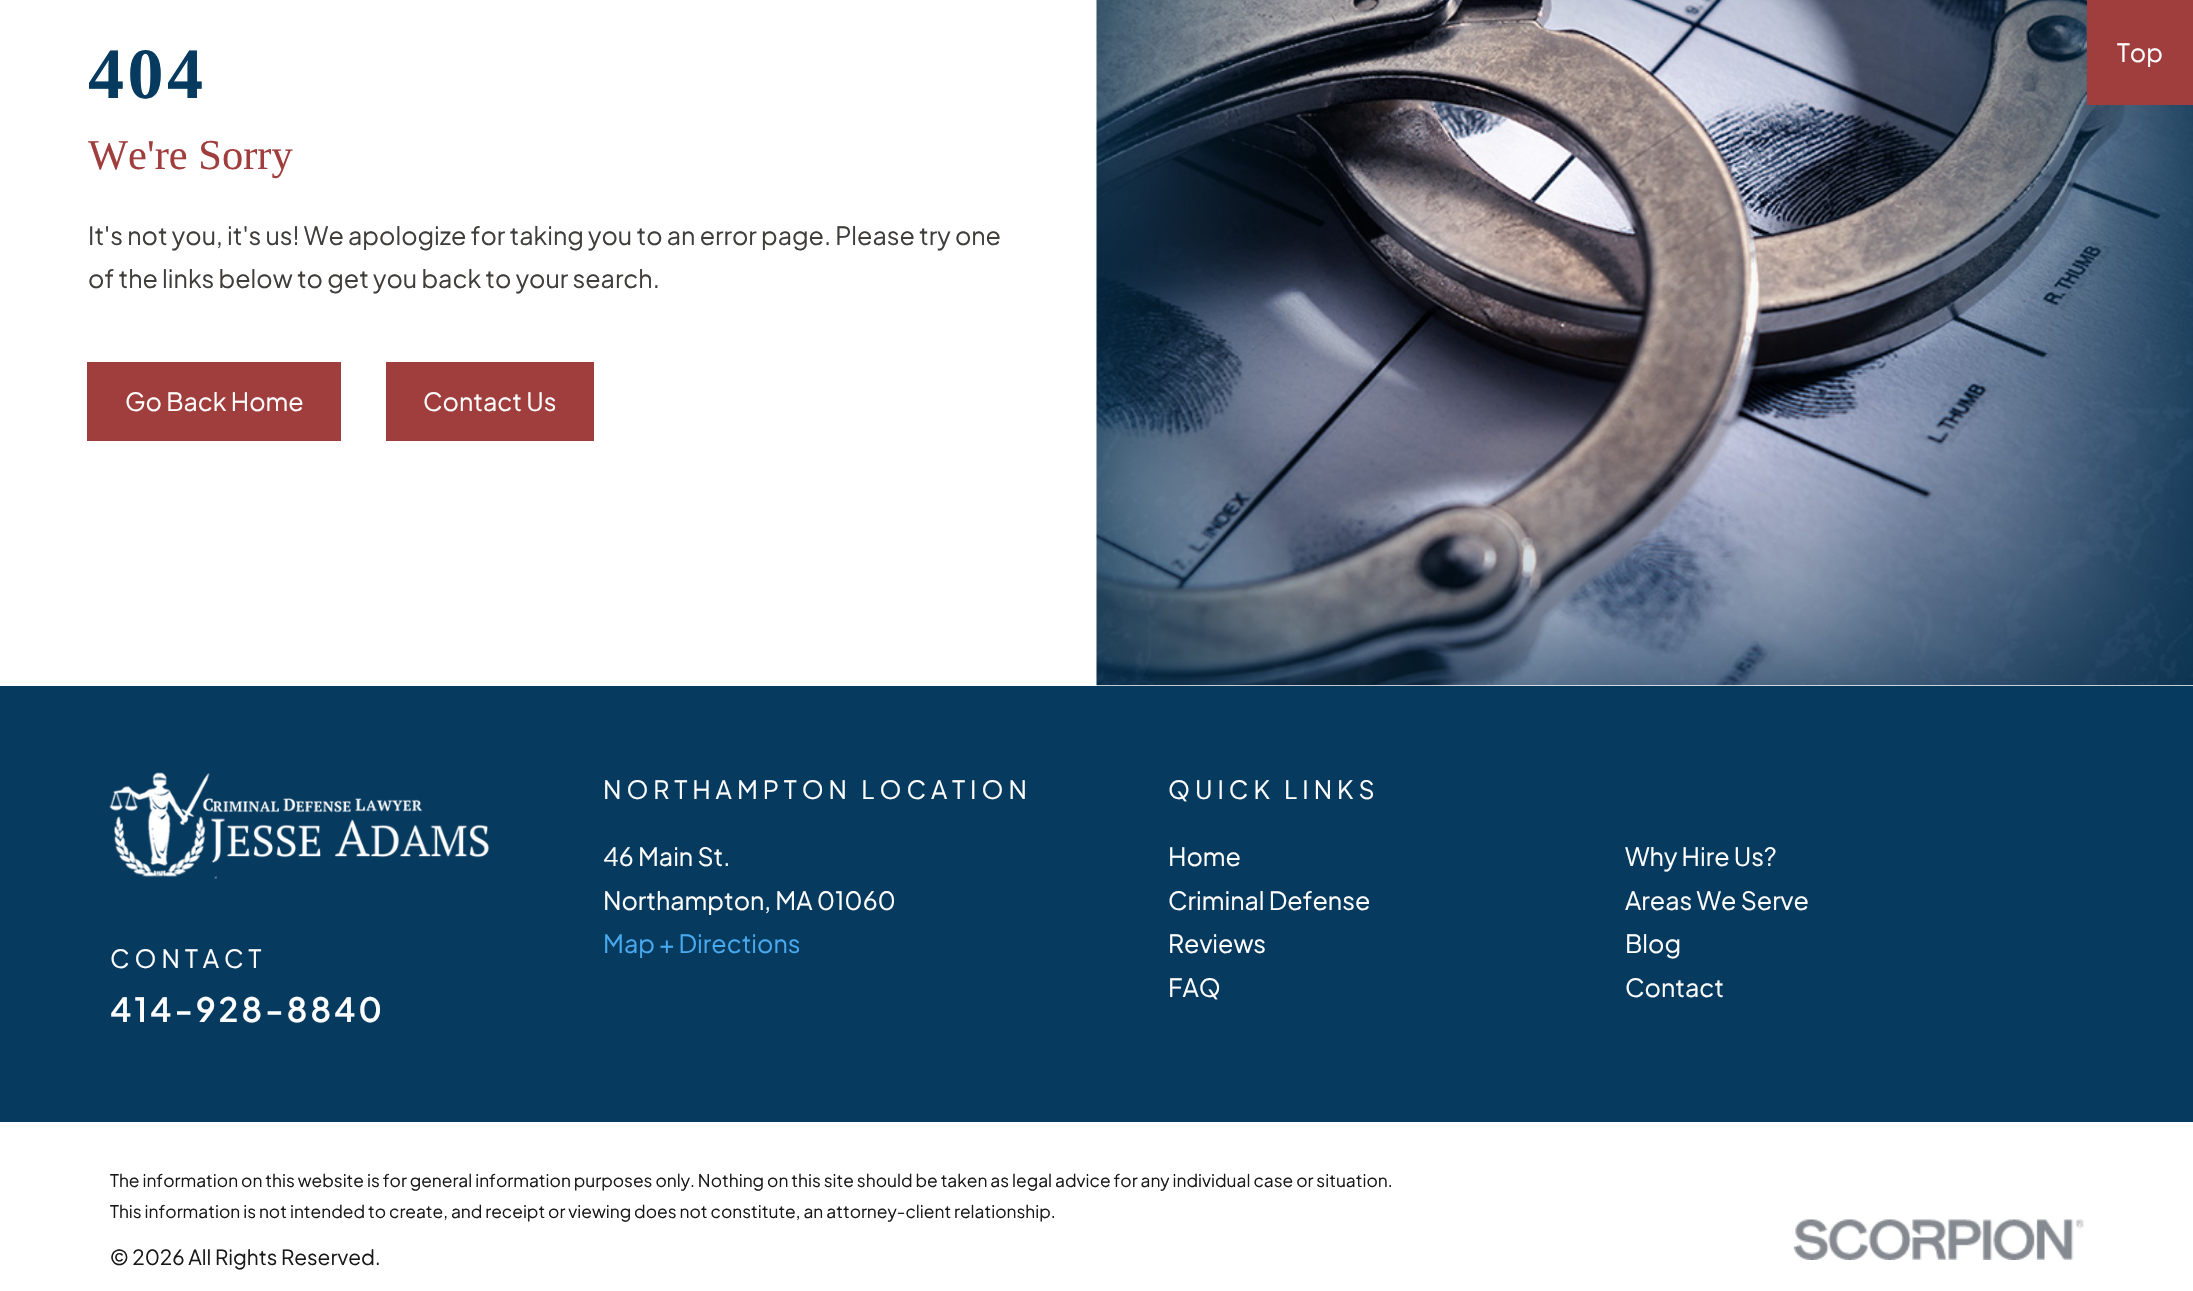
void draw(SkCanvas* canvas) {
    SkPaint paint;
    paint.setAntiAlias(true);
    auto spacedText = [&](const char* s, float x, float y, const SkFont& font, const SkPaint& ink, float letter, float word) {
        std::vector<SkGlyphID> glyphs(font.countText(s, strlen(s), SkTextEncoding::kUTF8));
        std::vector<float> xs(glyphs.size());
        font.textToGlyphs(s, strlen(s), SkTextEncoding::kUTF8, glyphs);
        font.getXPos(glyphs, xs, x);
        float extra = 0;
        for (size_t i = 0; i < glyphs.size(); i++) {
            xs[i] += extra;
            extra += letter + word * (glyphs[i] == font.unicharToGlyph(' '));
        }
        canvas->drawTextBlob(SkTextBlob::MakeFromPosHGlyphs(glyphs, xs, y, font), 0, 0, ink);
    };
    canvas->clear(0xFFFFFFFF);
    SkFont font1(fontMgr->matchFamilyStyle("Liberation Serif", SkFontStyle::Bold()), 72);
    font1.setSubpixel(true);
    paint.setColor(0xFF063A5F);
    spacedText("404", 88, 98, font1, paint, 3.5f, 0);
    SkFont font2(fontMgr->matchFamilyStyle("Liberation Serif", SkFontStyle::Normal()), 42.5f);
    font2.setSubpixel(true);
    paint.setColor(0xFFA03E3E);
    canvas->drawString("We're Sorry", 88, 169, font2, paint);
    SkFont font3(fontMgr->matchFamilyStyle("Plus Jakarta Sans", SkFontStyle::Normal()), 25);
    font3.setSubpixel(true);
    paint.setColor(0xFF3F3E3C);
    canvas->drawString("It's not you, it's us! We apologize for taking you to an error page. Please try one", 88, 245, font3, paint);
    canvas->drawString("of the links below to get you back to your search.", 88, 288, font3, paint);
    paint.setColor(0xFFA03E3E);
    canvas->drawRect(SkRect::MakeXYWH(87, 362, 254, 79), paint);
    paint.setColor(0xFFFFFFFF);
    canvas->drawString("Go Back Home", 125, 411, font3, paint);
    paint.setColor(0xFFA03E3E);
    canvas->drawRect(SkRect::MakeXYWH(386, 362, 208, 79), paint);
    paint.setColor(0xFFFFFFFF);
    canvas->drawString("Contact Us", 423, 411, font3, paint);
    canvas->drawImageRect(SkImages::DeferredFromEncodedData(SkData::MakeFromFileName("img1.png")), SkRect::MakeXYWH(1096, 0, 1097, 686), SkSamplingOptions());
    paint.setColor(0xFFA03E3E);
    canvas->drawRect(SkRect::MakeXYWH(2087, 0, 106, 105), paint);
    paint.setColor(0xFFFFFFFF);
    canvas->drawString("Top", 2117, 62, font3, paint);
    paint.setColor(0xFF063A5F);
    canvas->drawRect(SkRect::MakeXYWH(0, 686, 2193, 436), paint);
    canvas->drawImageRect(SkImages::DeferredFromEncodedData(SkData::MakeFromFileName("img2.png")), SkRect::MakeXYWH(109, 772, 381, 107), SkSamplingOptions());
    paint.setColor(0xFFFFFFFF);
    spacedText("CONTACT", 110, 968, font3, paint, 5, 0);
    SkFont font4(fontMgr->matchFamilyStyle("Plus Jakarta Sans", SkFontStyle(600, SkFontStyle::kNormal_Width, SkFontStyle::kUpright_Slant)), 33.25f);
    font4.setSubpixel(true);
    spacedText("414-928-8840", 110, 1022, font4, paint, 2.75f, 0);
    spacedText("NORTHAMPTON LOCATION", 603, 799, font3, paint, 5, 0);
    canvas->drawString("46 Main St.", 603, 866, font3, paint);
    canvas->drawString("Northampton, MA 01060", 603, 910, font3, paint);
    paint.setColor(0xFF48A9EE);
    canvas->drawString("Map + Directions", 603, 953, font3, paint);
    paint.setColor(0xFFFFFFFF);
    spacedText("QUICK LINKS", 1168, 799, font3, paint, 5, 0);
    canvas->drawString("Home", 1168, 866, font3, paint);
    canvas->drawString("Why Hire Us?", 1625, 866, font3, paint);
    canvas->drawString("Criminal Defense", 1168, 910, font3, paint);
    canvas->drawString("Areas We Serve", 1625, 910, font3, paint);
    canvas->drawString("Reviews", 1168, 953, font3, paint);
    canvas->drawString("Blog", 1625, 953, font3, paint);
    canvas->drawString("FAQ", 1168, 997, font3, paint);
    canvas->drawString("Contact", 1625, 997, font3, paint);
    SkFont font5(fontMgr->matchFamilyStyle("Plus Jakarta Sans", SkFontStyle::Normal()), 17.35f);
    font5.setSubpixel(true);
    paint.setColor(0xFF191919);
    canvas->drawString("The information on this website is for general information purposes only. Nothing on this site should be taken as legal advice for any individual case or situation.", 110, 1187, font5, paint);
    canvas->drawString("This information is not intended to create, and receipt or viewing does not constitute, an attorney-client relationship.", 110, 1218, font5, paint);
    SkFont font6(fontMgr->matchFamilyStyle("Plus Jakarta Sans", SkFontStyle::Normal()), 20.8f);
    font6.setSubpixel(true);
    canvas->drawString("© 2026 All Rights Reserved.", 110, 1265, font6, paint);
    canvas->drawImageRect(SkImages::DeferredFromEncodedData(SkData::MakeFromFileName("img3.png")), SkRect::MakeXYWH(1794, 1219, 290, 41), SkSamplingOptions());
}
